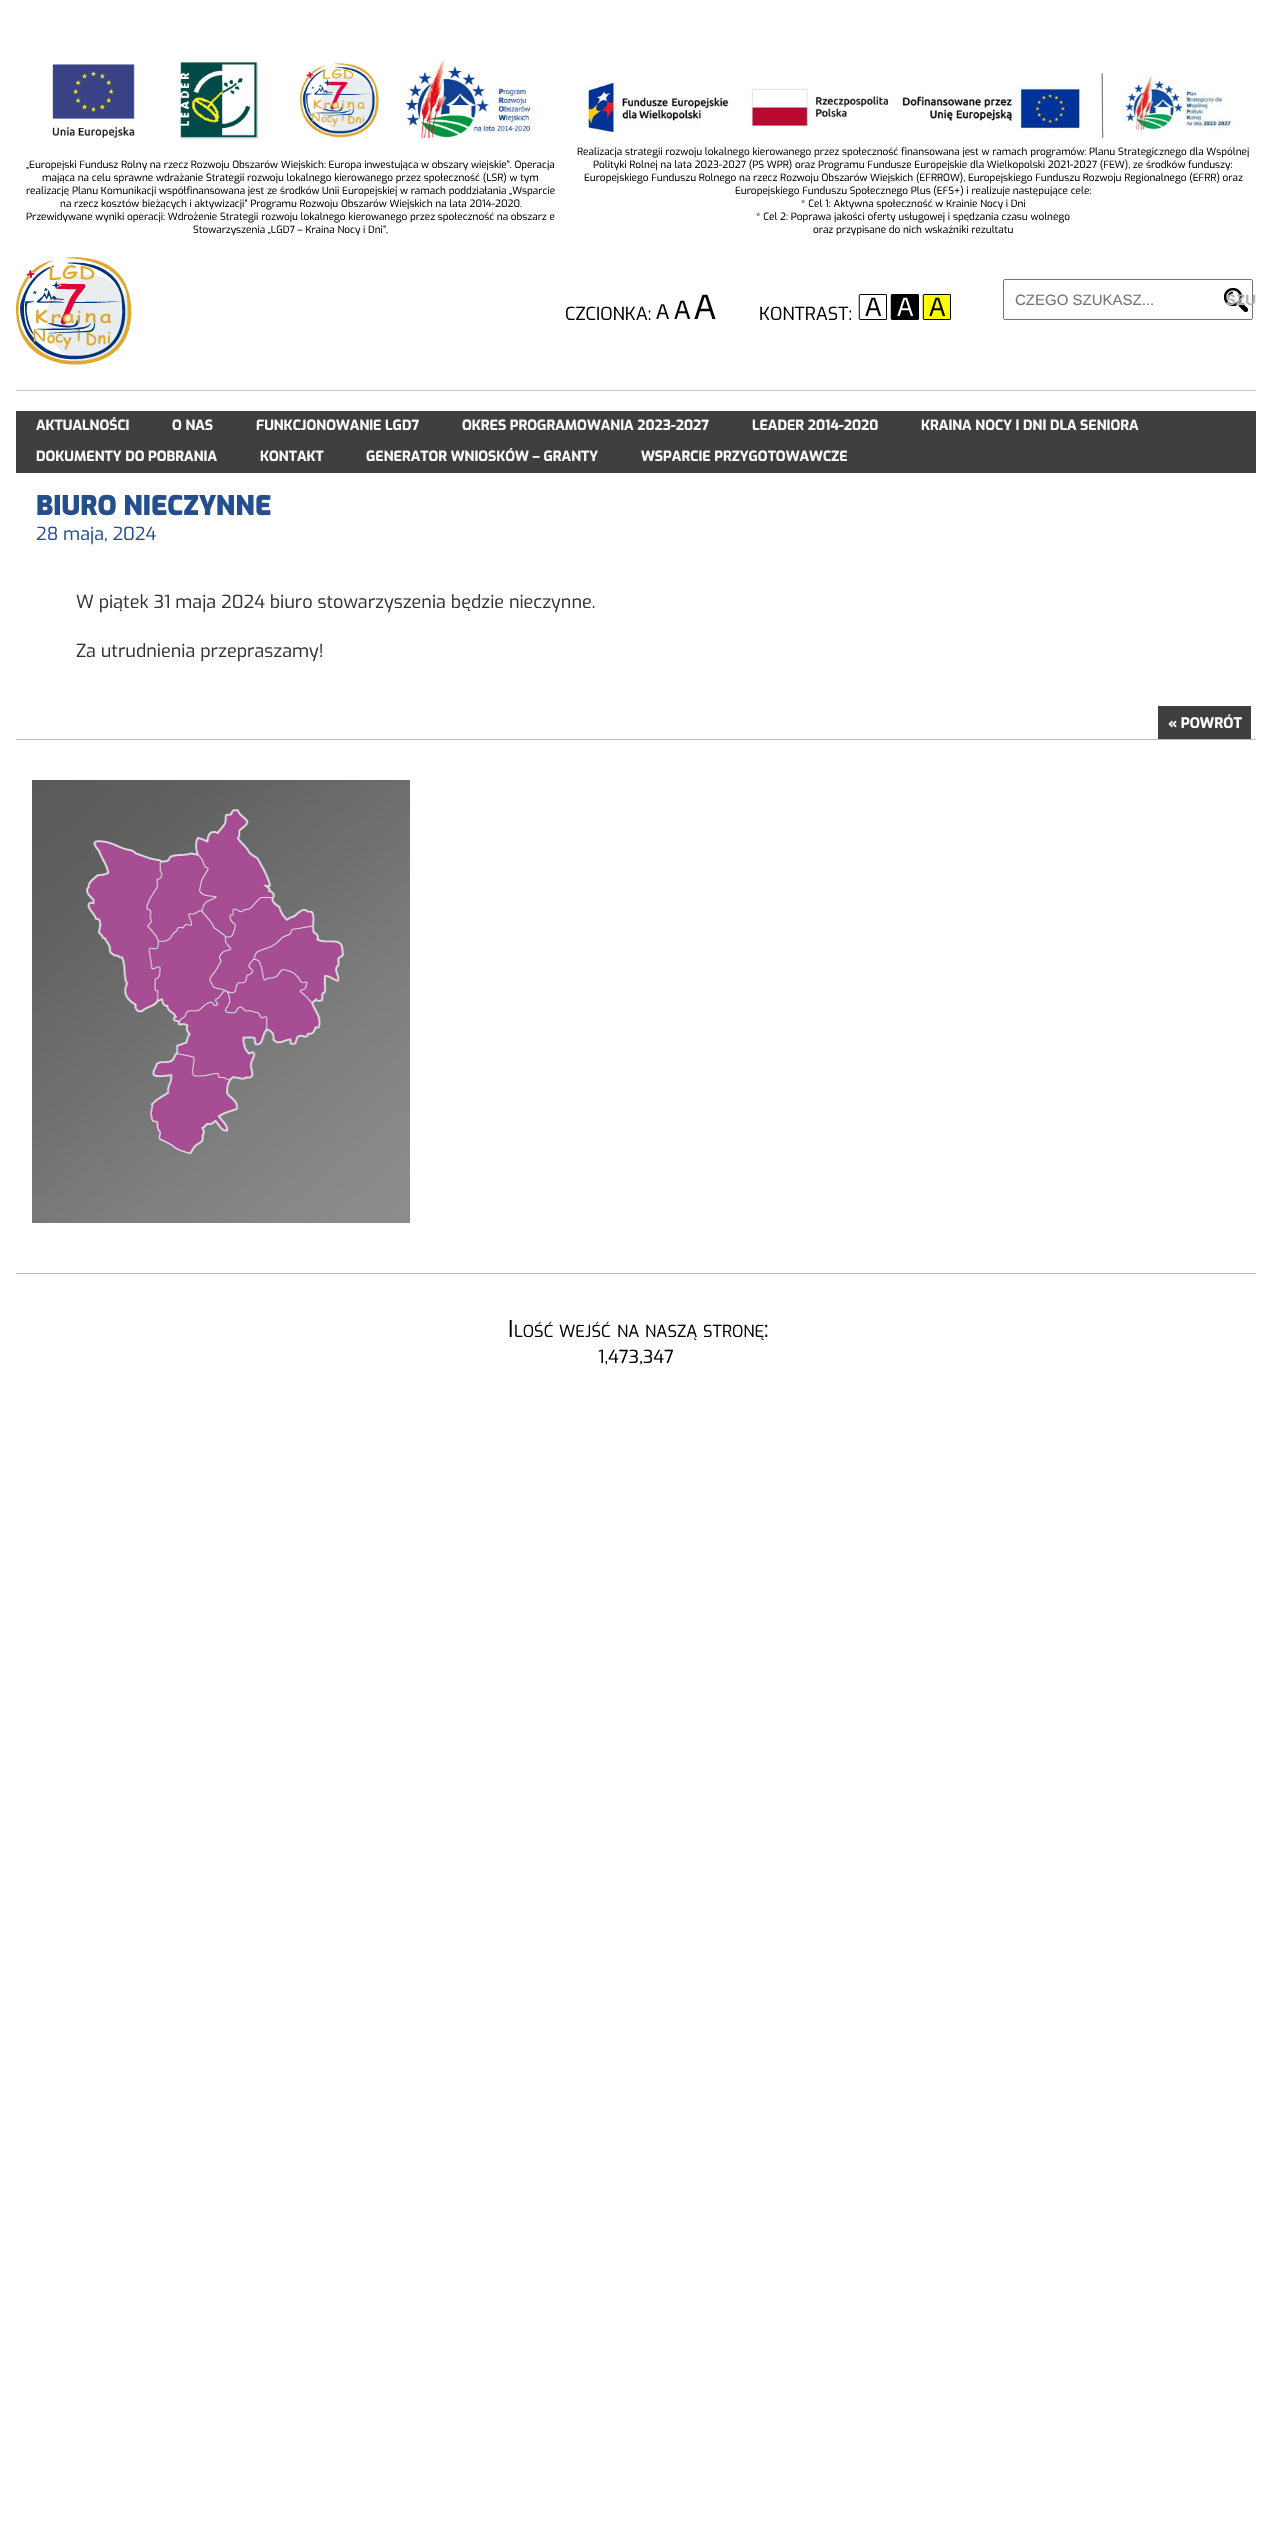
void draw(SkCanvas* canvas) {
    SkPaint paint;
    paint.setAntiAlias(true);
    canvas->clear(0xFFFFFFFF);
    paint.setColor(0xFFCCCCCC);
    canvas->drawRect(SkRect::MakeXYWH(16, 390, 1240, 1), paint);
    canvas->drawImageRect(SkImages::DeferredFromEncodedData(SkData::MakeFromFileName("img1.png")), SkRect::MakeXYWH(52, 58, 479, 81), SkSamplingOptions());
    SkFont font1(fontMgr->matchFamilyStyle("Exo", SkFontStyle::Normal()), 10);
    font1.setSubpixel(true);
    paint.setColor(0xFF000000);
    canvas->drawString("„Europejski Fundusz Rolny na rzecz Rozwoju Obszarów Wiejskich: Europa inwestująca w obszary wiejskie”. Operacja", 26, 168, font1, paint);
    canvas->drawString("mająca na celu sprawne wdrażanie Strategii rozwoju lokalnego kierowanego przez społeczność (LSR) w tym", 42, 181, font1, paint);
    canvas->drawString("realizację Planu Komunikacji współfinansowana jest ze środków Unii Europejskiej w ramach poddziałania „Wsparcie", 26, 194, font1, paint);
    canvas->drawString("na rzecz kosztów bieżących i aktywizacji” Programu Rozwoju Obszarów Wiejskich na lata 2014-2020.", 60, 207, font1, paint);
    canvas->drawString("Przewidywane wyniki operacji: Wdrożenie Strategii rozwoju lokalnego kierowanego przez społeczność na obszarz e", 26, 220, font1, paint);
    canvas->drawString("Stowarzyszenia „LGD7 – Kraina Nocy i Dni”,", 193, 233, font1, paint);
    canvas->drawImageRect(SkImages::DeferredFromEncodedData(SkData::MakeFromFileName("img2.png")), SkRect::MakeXYWH(584, 73, 653, 65), SkSamplingOptions());
    canvas->drawString("Realizacja strategii rozwoju lokalnego kierowanego przez społeczność finansowana jest w ramach programów: Planu Strategicznego dla Wspólnej", 577, 155, font1, paint);
    canvas->drawString("Polityki Rolnej na lata 2023-2027 (PS WPR) oraz Programu Fundusze Europejskie dla Wielkopolski 2021-2027 (FEW), ze środków funduszy:", 593, 168, font1, paint);
    canvas->drawString("Europejskiego Funduszu Rolnego na rzecz Rozwoju Obszarów Wiejskich (EFRROW), Europejskiego Funduszu Rozwoju Regionalnego (EFRR) oraz", 584, 181, font1, paint);
    canvas->drawString("Europejskiego Funduszu Społecznego Plus (EFS+) i realizuje następujące cele:", 735, 194, font1, paint);
    canvas->drawString("* Cel 1: Aktywna społeczność w Krainie Nocy i Dni", 801, 207, font1, paint);
    canvas->drawString("* Cel 2: Poprawa jakości oferty usługowej i spędzania czasu wolnego", 756, 220, font1, paint);
    canvas->drawString("oraz przypisane do nich wskaźniki rezultatu", 813, 233, font1, paint);
    canvas->drawImageRect(SkImages::DeferredFromEncodedData(SkData::MakeFromFileName("img3.png")), SkRect::MakeXYWH(16, 257, 116, 108), SkSamplingOptions());
    paint.setStyle(SkPaint::kStroke_Style);
    paint.setStrokeWidth(1);
    paint.setColor(0xFF767676);
    canvas->drawRoundRect(SkRect::MakeXYWH(1003.5f, 279.5f, 249, 40), 1.5f, 1.5f, paint);
    SkFont font2(fontMgr->matchFamilyStyle("Liberation Sans", SkFontStyle::Normal()), 15);
    font2.setSubpixel(true);
    paint.setStyle(SkPaint::kFill_Style);
    paint.setColor(0xFF757575);
    canvas->drawString("CZEGO SZUKASZ...", 1015, 305, font2, paint);
    canvas->drawImageRect(SkImages::DeferredFromEncodedData(SkData::MakeFromFileName("img4.png")), SkRect::MakeXYWH(1224, 288, 24, 24), SkSamplingOptions());
    SkFont font3(fontMgr->matchFamilyStyle("Liberation Sans", SkFontStyle::Bold()), 15);
    font3.setSubpixel(true);
    paint.setColor(0xFFB3B3B3);
    canvas->drawString("SZU", 1226, 305, font3, paint);
    SkFont font4(fontMgr->matchFamilyStyle("Exo", SkFontStyle::Normal()), 18);
    font4.setSubpixel(true);
    paint.setColor(0xFF000000);
    canvas->drawString("CZCIONKA:", 565, 320, font4, paint);
    canvas->drawImageRect(SkImages::DeferredFromEncodedData(SkData::MakeFromFileName("img5.png")), SkRect::MakeXYWH(656, 304, 13, 15), SkSamplingOptions());
    canvas->drawImageRect(SkImages::DeferredFromEncodedData(SkData::MakeFromFileName("img6.png")), SkRect::MakeXYWH(674, 300, 17, 19), SkSamplingOptions());
    canvas->drawImageRect(SkImages::DeferredFromEncodedData(SkData::MakeFromFileName("img7.png")), SkRect::MakeXYWH(694, 294, 22, 25), SkSamplingOptions());
    canvas->drawString("KONTRAST:", 759, 320, font4, paint);
    canvas->drawImageRect(SkImages::DeferredFromEncodedData(SkData::MakeFromFileName("img8.png")), SkRect::MakeXYWH(858, 294, 29, 26), SkSamplingOptions());
    canvas->drawImageRect(SkImages::DeferredFromEncodedData(SkData::MakeFromFileName("img9.png")), SkRect::MakeXYWH(890, 294, 29, 26), SkSamplingOptions());
    canvas->drawImageRect(SkImages::DeferredFromEncodedData(SkData::MakeFromFileName("img10.png")), SkRect::MakeXYWH(922, 294, 29, 26), SkSamplingOptions());
    paint.setColor(0xFF3F3F3F);
    canvas->drawRect(SkRect::MakeXYWH(16, 411, 1240, 62), paint);
    SkFont font5(fontMgr->matchFamilyStyle("Exo", SkFontStyle::Bold()), 14);
    font5.setSubpixel(true);
    paint.setColor(0xFFFFFFFF);
    canvas->drawString("AKTUALNOŚCI", 36, 430, font5, paint);
    canvas->drawString("O NAS", 172, 430, font5, paint);
    canvas->drawString("FUNKCJONOWANIE LGD7", 256, 430, font5, paint);
    canvas->drawString("OKRES PROGRAMOWANIA 2023-2027", 462, 430, font5, paint);
    canvas->drawString("LEADER 2014-2020", 752, 430, font5, paint);
    canvas->drawString("KRAINA NOCY I DNI DLA SENIORA", 921, 430, font5, paint);
    canvas->drawString("DOKUMENTY DO POBRANIA", 36, 461, font5, paint);
    canvas->drawString("KONTAKT", 260, 461, font5, paint);
    canvas->drawString("GENERATOR WNIOSKÓW – GRANTY", 366, 461, font5, paint);
    canvas->drawString("WSPARCIE PRZYGOTOWAWCZE", 641, 461, font5, paint);
    SkFont font6(fontMgr->matchFamilyStyle("Exo", SkFontStyle(900, SkFontStyle::kNormal_Width, SkFontStyle::kUpright_Slant)), 27);
    font6.setSubpixel(true);
    paint.setColor(0xFF234F8E);
    canvas->drawString("BIURO NIECZYNNE", 36, 515, font6, paint);
    canvas->drawString("28 maja, 2024", 36, 540, font4, paint);
    paint.setColor(0xFF333333);
    canvas->drawString("W piątek 31 maja 2024 biuro stowarzyszenia będzie nieczynne.", 76, 608, font4, paint);
    canvas->drawString("Za utrudnienia przepraszamy!", 76, 657, font4, paint);
    paint.setColor(0xFF3F3F3F);
    canvas->drawRect(SkRect::MakeXYWH(1158, 706, 93, 33), paint);
    SkFont font7(fontMgr->matchFamilyStyle("Exo", SkFontStyle::Bold()), 14.5f);
    font7.setSubpixel(true);
    paint.setColor(0xFFFFFFFF);
    canvas->drawString("« POWRÓT", 1168, 728, font7, paint);
    paint.setColor(0xFFBBBBBB);
    canvas->drawRect(SkRect::MakeXYWH(16, 739, 1240, 1), paint);
    canvas->drawImageRect(SkImages::DeferredFromEncodedData(SkData::MakeFromFileName("img11.png")), SkRect::MakeXYWH(32, 780, 378, 443), SkSamplingOptions());
    canvas->drawRect(SkRect::MakeXYWH(16, 1273, 1240, 1), paint);
    SkFont font8(fontMgr->matchFamilyStyle("Exo", SkFontStyle::Normal()), 23);
    font8.setSubpixel(true);
    paint.setColor(0xFF000000);
    canvas->drawString("I", 508, 1337, font8, paint);
    SkFont font9(fontMgr->matchFamilyStyle("Exo", SkFontStyle::Normal()), 16.5f);
    font9.setSubpixel(true);
    canvas->drawString("LOŚĆ", 514, 1337, font9, paint);
    canvas->drawString("WEJŚĆ", 559, 1337, font9, paint);
    canvas->drawString("NA", 617, 1337, font9, paint);
    canvas->drawString("NASZĄ", 645, 1337, font9, paint);
    canvas->drawString("STRONĘ", 703, 1337, font9, paint);
    canvas->drawString(":", 764, 1337, font8, paint);
    canvas->drawString("1,473,347", 598, 1363, font4, paint);
}
